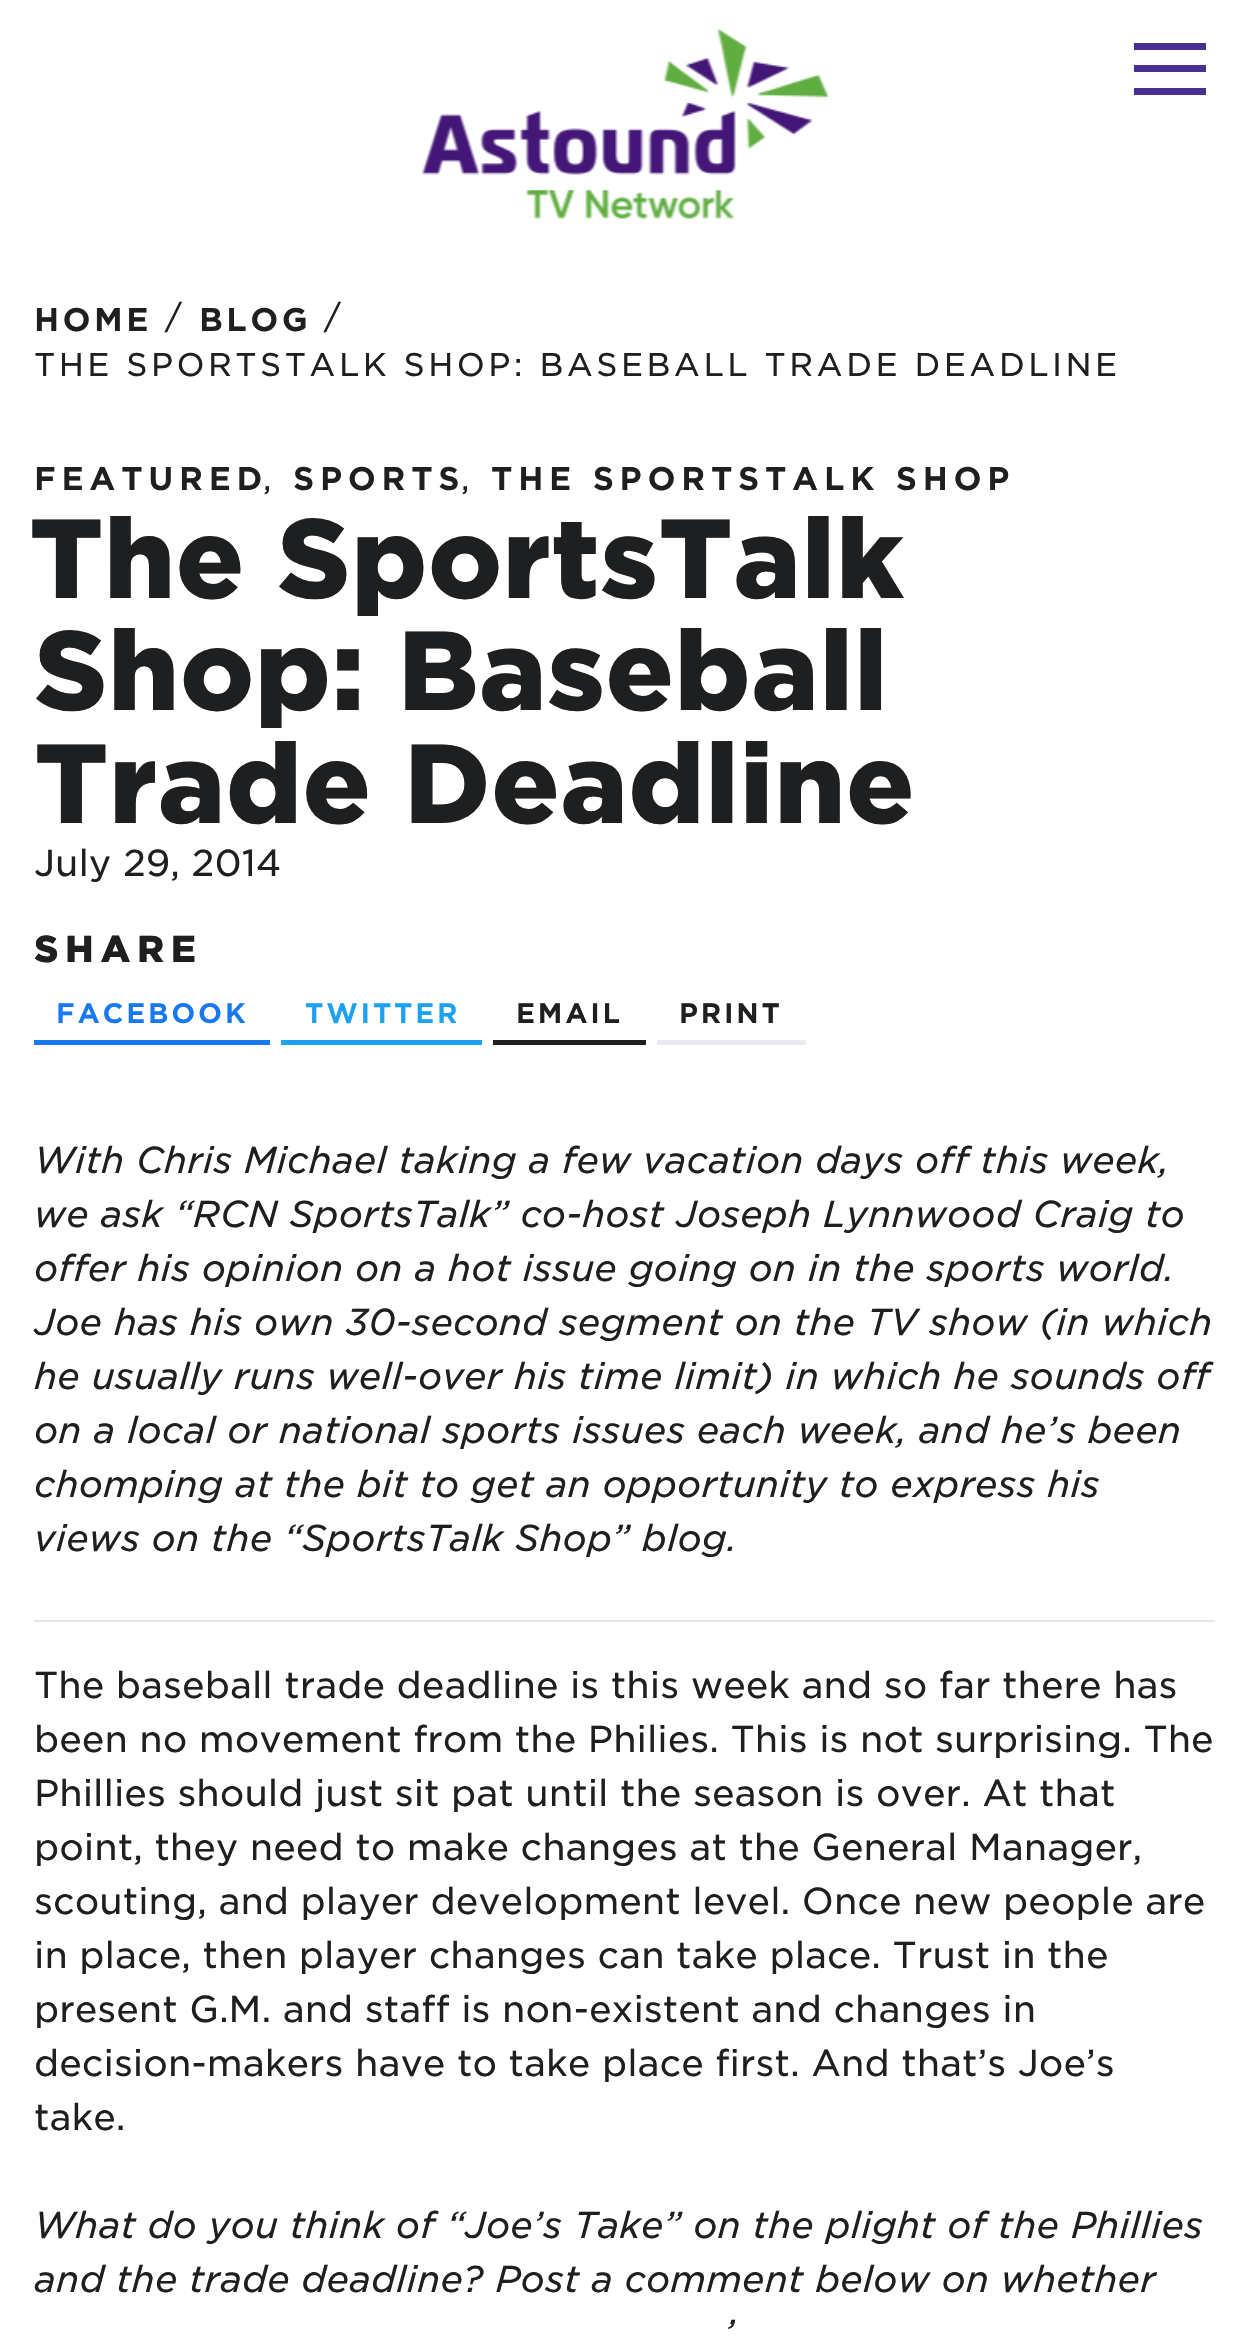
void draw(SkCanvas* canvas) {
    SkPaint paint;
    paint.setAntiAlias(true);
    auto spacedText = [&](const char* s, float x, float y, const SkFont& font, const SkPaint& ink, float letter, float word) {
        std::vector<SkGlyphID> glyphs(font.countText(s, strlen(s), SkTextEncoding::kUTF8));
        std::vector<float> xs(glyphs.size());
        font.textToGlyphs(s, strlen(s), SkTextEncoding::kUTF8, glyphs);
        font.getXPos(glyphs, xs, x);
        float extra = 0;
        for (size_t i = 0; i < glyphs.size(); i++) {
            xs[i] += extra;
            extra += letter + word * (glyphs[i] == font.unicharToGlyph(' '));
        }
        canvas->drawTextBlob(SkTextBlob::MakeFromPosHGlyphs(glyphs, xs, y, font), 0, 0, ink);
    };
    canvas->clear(0xFFFFFFFF);
    canvas->drawImageRect(SkImages::DeferredFromEncodedData(SkData::MakeFromFileName("img1.png")), SkRect::MakeXYWH(422, 28, 406, 191), SkSamplingOptions());
    paint.setColor(0xFF483092);
    canvas->drawRect(SkRect::MakeXYWH(1134, 43, 72, 7), paint);
    canvas->drawRect(SkRect::MakeXYWH(1134, 65, 72, 7), paint);
    canvas->drawRect(SkRect::MakeXYWH(1134, 88, 72, 7), paint);
    SkFont font1(fontMgr->matchFamilyStyle("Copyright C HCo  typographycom", SkFontStyle::Normal()), 31.5f);
    font1.setSubpixel(true);
    paint.setColor(0xFF1D1F20);
    spacedText("HOME", 34, 331, font1, paint, 3.4f, 0);
    SkFont font2(fontMgr->matchFamilyStyle("Copyright C HCo  typographycom", SkFontStyle(300, SkFontStyle::kNormal_Width, SkFontStyle::kUpright_Slant)), 31.5f);
    font2.setSubpixel(true);
    spacedText("/", 165, 328, font2, paint, 3.4f, 0);
    spacedText("BLOG", 199, 331, font1, paint, 3.4f, 0);
    spacedText("/", 324, 328, font2, paint, 3.4f, 0);
    spacedText("THE SPORTSTALK SHOP: BASEBALL TRADE DEADLINE", 34, 376, font2, paint, 3.4f, 0);
    spacedText("FEATURED", 34, 490, font1, paint, 5.7f, 0);
    canvas->drawString(",", 263, 490, font2, paint);
    spacedText("SPORTS", 293, 490, font1, paint, 5.7f, 0);
    canvas->drawString(",", 461, 490, font2, paint);
    spacedText("THE SPORTSTALK SHOP", 491, 490, font1, paint, 5.7f, 0);
    SkFont font3(fontMgr->matchFamilyStyle("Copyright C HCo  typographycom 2", SkFontStyle::Normal()), 108);
    font3.setSubpixel(true);
    canvas->drawString("The SportsTalk", 29, 598, font3, paint);
    canvas->drawString("Shop: Baseball", 34, 710, font3, paint);
    canvas->drawString("Trade Deadline", 34, 823, font3, paint);
    SkFont font4(fontMgr->matchFamilyStyle("Copyright C HCo  typographycom", SkFontStyle(300, SkFontStyle::kNormal_Width, SkFontStyle::kUpright_Slant)), 36);
    font4.setSubpixel(true);
    canvas->drawString("July 29, 2014", 34, 876, font4, paint);
    SkFont font5(fontMgr->matchFamilyStyle("Copyright C HCo  typographycom 2", SkFontStyle::Normal()), 36);
    font5.setSubpixel(true);
    spacedText("SHARE", 34, 962, font5, paint, 6.5f, 0);
    paint.setColor(0xFF1778F2);
    canvas->drawRect(SkRect::MakeXYWH(34, 1040, 236, 5), paint);
    SkFont font6(fontMgr->matchFamilyStyle("Copyright C HCo  typographycom", SkFontStyle::Normal()), 27);
    font6.setSubpixel(true);
    spacedText("FACEBOOK", 56, 1023, font6, paint, 2.75f, 0);
    paint.setColor(0xFF1DA1F2);
    canvas->drawRect(SkRect::MakeXYWH(281, 1040, 201, 5), paint);
    spacedText("TWITTER", 305, 1023, font6, paint, 2.75f, 0);
    paint.setColor(0xFF1D1F20);
    canvas->drawRect(SkRect::MakeXYWH(493, 1040, 153, 5), paint);
    spacedText("EMAIL", 516, 1023, font6, paint, 2.75f, 0);
    paint.setColor(0xFFE9EBF0);
    canvas->drawRect(SkRect::MakeXYWH(657, 1040, 149, 5), paint);
    paint.setColor(0xFF1D1F20);
    spacedText("PRINT", 679, 1023, font6, paint, 2.75f, 0);
    SkFont font7(fontMgr->matchFamilyStyle("Copyright C HCo  typographycom", SkFontStyle(300, SkFontStyle::kNormal_Width, SkFontStyle::kItalic_Slant)), 36);
    font7.setSubpixel(true);
    canvas->drawString("With Chris Michael taking a few vacation days off this week,", 34, 1173, font7, paint);
    canvas->drawString("we ask “RCN SportsTalk” co-host Joseph Lynnwood Craig to", 34, 1227, font7, paint);
    canvas->drawString("offer his opinion on a hot issue going on in the sports world.", 34, 1281, font7, paint);
    canvas->drawString("Joe has his own 30-second segment on the TV show (in which", 34, 1335, font7, paint);
    canvas->drawString("he usually runs well-over his time limit) in which he sounds off", 34, 1389, font7, paint);
    canvas->drawString("on a local or national sports issues each week, and he’s been", 34, 1443, font7, paint);
    canvas->drawString("chomping at the bit to get an opportunity to express his", 34, 1497, font7, paint);
    canvas->drawString("views on the “SportsTalk Shop” blog.", 34, 1551, font7, paint);
    paint.setColor(0xFFE6E6E6);
    canvas->drawRect(SkRect::MakeXYWH(34, 1620, 1181, 2), paint);
    paint.setColor(0xFF1D1F20);
    canvas->drawString("The baseball trade deadline is this week and so far there has", 34, 1698, font4, paint);
    canvas->drawString("been no movement from the Philies. This is not surprising. The", 34, 1752, font4, paint);
    canvas->drawString("Phillies should just sit pat until the season is over. At that", 34, 1806, font4, paint);
    canvas->drawString("point, they need to make changes at the General Manager,", 34, 1860, font4, paint);
    canvas->drawString("scouting, and player development level. Once new people are", 34, 1914, font4, paint);
    canvas->drawString("in place, then player changes can take place. Trust in the", 34, 1968, font4, paint);
    canvas->drawString("present G.M. and staff is non-existent and changes in", 34, 2022, font4, paint);
    canvas->drawString("decision-makers have to take place first. And that’s Joe’s", 34, 2076, font4, paint);
    canvas->drawString("take.", 34, 2130, font4, paint);
    canvas->drawString("What do you think of “Joe’s Take” on the plight of the Phillies", 34, 2238, font7, paint);
    canvas->drawString("and the trade deadline? Post a comment below on whether", 34, 2292, font7, paint);
    canvas->drawString("’", 724, 2346, font7, paint);
}
